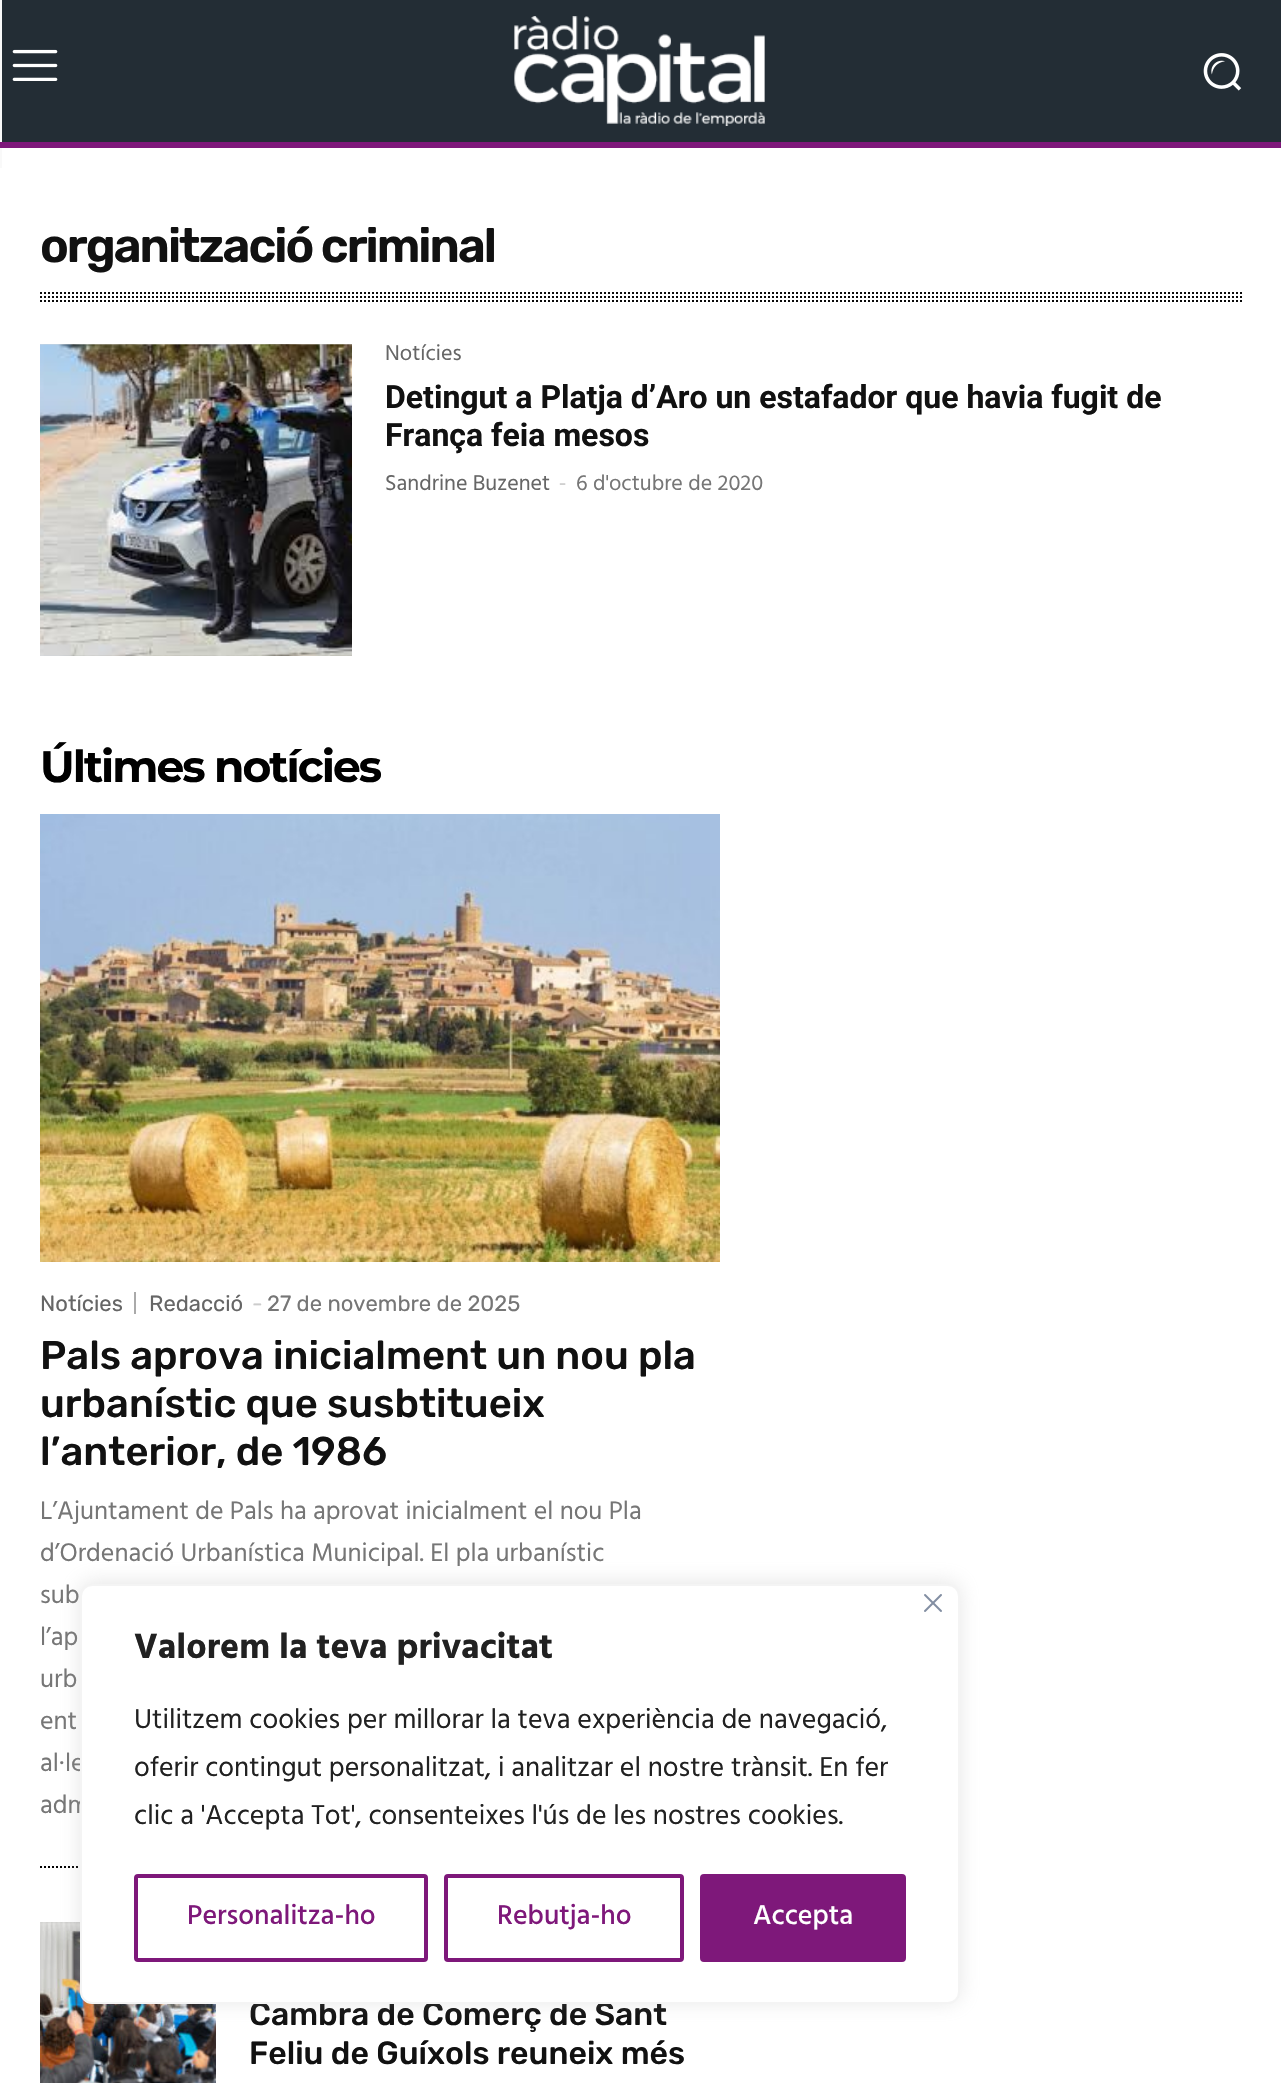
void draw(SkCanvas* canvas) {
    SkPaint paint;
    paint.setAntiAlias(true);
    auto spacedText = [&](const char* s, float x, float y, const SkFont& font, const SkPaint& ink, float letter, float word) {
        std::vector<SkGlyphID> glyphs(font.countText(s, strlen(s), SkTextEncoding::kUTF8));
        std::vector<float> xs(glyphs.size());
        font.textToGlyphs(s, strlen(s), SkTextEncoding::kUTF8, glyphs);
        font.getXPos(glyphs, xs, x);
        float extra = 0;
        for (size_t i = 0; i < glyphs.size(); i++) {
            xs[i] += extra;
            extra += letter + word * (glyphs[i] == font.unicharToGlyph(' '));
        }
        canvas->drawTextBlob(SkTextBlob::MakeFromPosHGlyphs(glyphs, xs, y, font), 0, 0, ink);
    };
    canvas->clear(0xFFF9F9F9);
    paint.setColor(0xFF232D35);
    canvas->drawRect(SkRect::MakeXYWH(2, 0, 1279, 142), paint);
    canvas->drawImageRect(SkImages::DeferredFromEncodedData(SkData::MakeFromFileName("img1.png")), SkRect::MakeXYWH(12, 49, 46, 32), SkSamplingOptions());
    canvas->drawImageRect(SkImages::DeferredFromEncodedData(SkData::MakeFromFileName("img2.png")), SkRect::MakeXYWH(514, 16, 251, 110), SkSamplingOptions());
    canvas->drawImageRect(SkImages::DeferredFromEncodedData(SkData::MakeFromFileName("img3.png")), SkRect::MakeXYWH(1203, 53, 39, 38), SkSamplingOptions());
    paint.setColor(0xFF7E187A);
    canvas->drawRect(SkRect::MakeXYWH(0, 142, 1281, 6), paint);
    paint.setColor(0xFFFFFFFF);
    canvas->drawRect(SkRect::MakeXYWH(2, 148, 1279, 20), paint);
    canvas->drawRect(SkRect::MakeXYWH(0, 168, 1281, 1915), paint);
    SkFont font1(fontMgr->matchFamilyStyle("Rubik", SkFontStyle(600, SkFontStyle::kNormal_Width, SkFontStyle::kUpright_Slant)), 48);
    font1.setSubpixel(true);
    paint.setColor(0xFF111111);
    spacedText("organització criminal", 40, 262, font1, paint, -2, 0);
    paint.setStyle(SkPaint::kStroke_Style);
    paint.setStrokeWidth(2);
    paint.setColor(0xFF0A0A0A);
    paint.setPathEffect(SkDashPathEffect::Make({{2, 2}}, 0));
    canvas->drawPath(SkPathBuilder().moveTo(40, 293).lineTo(1242, 293).detach(), paint);
    paint.setPathEffect(nullptr);
    paint.setPathEffect(SkDashPathEffect::Make({{2, 2}}, 0));
    canvas->drawPath(SkPathBuilder().moveTo(40, 297).lineTo(1242, 297).detach(), paint);
    paint.setPathEffect(nullptr);
    paint.setPathEffect(SkDashPathEffect::Make({{2, 2}}, 0));
    canvas->drawPath(SkPathBuilder().moveTo(40, 301).lineTo(1242, 301).detach(), paint);
    paint.setPathEffect(nullptr);
    canvas->drawImageRect(SkImages::DeferredFromEncodedData(SkData::MakeFromFileName("img4.png")), SkRect::MakeXYWH(40, 344, 312, 312), SkSamplingOptions());
    SkFont font2(fontMgr->matchFamilyStyle("Hind", SkFontStyle::Normal()), 22);
    font2.setSubpixel(true);
    paint.setStyle(SkPaint::kFill_Style);
    paint.setColor(0xFF666666);
    canvas->drawString("Notícies", 385, 360, font2, paint);
    SkFont font3(fontMgr->matchFamilyStyle("Roboto", SkFontStyle::Bold()), 32);
    font3.setSubpixel(true);
    paint.setColor(0xFF111111);
    canvas->drawString("Detingut a Platja d’Aro un estafador que havia fugit de", 385, 408, font3, paint);
    canvas->drawString("França feia mesos", 385, 446, font3, paint);
    paint.setColor(0xFF666666);
    canvas->drawString("Sandrine Buzenet", 385, 490, font2, paint);
    SkFont font4(fontMgr->matchFamilyStyle("Open Sans", SkFontStyle::Normal()), 22);
    font4.setSubpixel(true);
    paint.setColor(0xFFCCCCCC);
    canvas->drawString("-", 559, 490, font4, paint);
    paint.setColor(0xFF767676);
    canvas->drawString("6 d'octubre de 2020", 576, 490, font2, paint);
    SkFont font5(fontMgr->matchFamilyStyle("Montserrat", SkFontStyle::Bold()), 44);
    font5.setSubpixel(true);
    paint.setColor(0xFF000000);
    spacedText("Últimes notícies", 40, 782, font5, paint, -2, 0);
    paint.setStyle(SkPaint::kStroke_Style);
    paint.setPathEffect(SkDashPathEffect::Make({{2, 2}}, 0));
    canvas->drawPath(SkPathBuilder().moveTo(40, 1867).lineTo(720, 1867).detach(), paint);
    paint.setPathEffect(nullptr);
    canvas->drawImageRect(SkImages::DeferredFromEncodedData(SkData::MakeFromFileName("img5.png")), SkRect::MakeXYWH(40, 814, 680, 448), SkSamplingOptions());
    paint.setStyle(SkPaint::kFill_Style);
    paint.setColor(0xFFAAAAAA);
    canvas->drawRect(SkRect::MakeXYWH(134, 1292, 2, 22), paint);
    SkFont font6(fontMgr->matchFamilyStyle("Rubik", SkFontStyle::Normal()), 22);
    font6.setSubpixel(true);
    paint.setColor(0xFF666666);
    canvas->drawString("Notícies", 40, 1311, font6, paint);
    canvas->drawString("Redacció", 149, 1311, font6, paint);
    paint.setColor(0xFFCCCCCC);
    canvas->drawString("-", 252, 1311, font6, paint);
    paint.setColor(0xFF767676);
    canvas->drawString("27 de novembre de 2025", 267, 1311, font6, paint);
    SkFont font7(fontMgr->matchFamilyStyle("Rubik", SkFontStyle(500, SkFontStyle::kNormal_Width, SkFontStyle::kUpright_Slant)), 40);
    font7.setSubpixel(true);
    paint.setColor(0xFF111111);
    canvas->drawString("Pals aprova inicialment un nou pla", 40, 1369, font7, paint);
    canvas->drawString("urbanístic que susbtitueix", 40, 1417, font7, paint);
    canvas->drawString("l’anterior, de 1986", 40, 1465, font7, paint);
    SkFont font8(fontMgr->matchFamilyStyle("Hind", SkFontStyle::Normal()), 26);
    font8.setSubpixel(true);
    paint.setColor(0xFF767676);
    canvas->drawString("L’Ajuntament de Pals ha aprovat inicialment el nou Pla", 40, 1519, font8, paint);
    canvas->drawString("d’Ordenació Urbanística Municipal. El pla urbanístic", 40, 1561, font8, paint);
    canvas->drawString("sub", 40, 1603, font8, paint);
    canvas->drawString("l’ap", 40, 1645, font8, paint);
    canvas->drawString("urb", 40, 1687, font8, paint);
    canvas->drawString("ent", 40, 1729, font8, paint);
    canvas->drawString("al·le", 40, 1771, font8, paint);
    canvas->drawString("adm", 40, 1813, font8, paint);
    canvas->drawImageRect(SkImages::DeferredFromEncodedData(SkData::MakeFromFileName("img6.png")), SkRect::MakeXYWH(40, 1922, 176, 161), SkSamplingOptions());
    SkFont font9(fontMgr->matchFamilyStyle("Rubik", SkFontStyle(500, SkFontStyle::kNormal_Width, SkFontStyle::kUpright_Slant)), 32);
    font9.setSubpixel(true);
    paint.setColor(0xFF111111);
    canvas->drawString("Cambra de Comerç de Sant", 249, 2025, font9, paint);
    canvas->drawString("Feliu de Guíxols reuneix més", 249, 2064, font9, paint);
    paint.setColor(0x4DACABAB);
    paint.setMaskFilter(SkMaskFilter::MakeBlur(kNormal_SkBlurStyle, 10));
    canvas->drawRoundRect(SkRect::MakeXYWH(80, 1582, 880, 420), 12, 12, paint);
    paint.setMaskFilter(nullptr);
    paint.setColor(0xFFFFFFFF);
    canvas->drawRoundRect(SkRect::MakeXYWH(81, 1585, 878, 418), 11, 11, paint);
    paint.setStyle(SkPaint::kStroke_Style);
    paint.setColor(0xFFF4F4F4);
    canvas->drawRoundRect(SkRect::MakeXYWH(81, 1585, 878, 418), 11, 11, paint);
    canvas->drawImageRect(SkImages::DeferredFromEncodedData(SkData::MakeFromFileName("img7.png")), SkRect::MakeXYWH(924, 1594, 18, 18), SkSamplingOptions());
    SkFont font10(fontMgr->matchFamilyStyle("Hind", SkFontStyle::Bold()), 36);
    font10.setSubpixel(true);
    paint.setStyle(SkPaint::kFill_Style);
    paint.setColor(0xFF212121);
    canvas->drawString("Valorem la teva privacitat", 134, 1658, font10, paint);
    SkFont font11(fontMgr->matchFamilyStyle("Hind", SkFontStyle::Normal()), 28);
    font11.setSubpixel(true);
    canvas->drawString("Utilitzem cookies per millorar la teva experiència de navegació,", 134, 1728, font11, paint);
    canvas->drawString("oferir contingut personalitzat, i analitzar el nostre trànsit. En fer", 134, 1776, font11, paint);
    canvas->drawString("clic a 'Accepta Tot', consenteixes l'ús de les nostres cookies.", 134, 1824, font11, paint);
    paint.setStyle(SkPaint::kStroke_Style);
    paint.setStrokeWidth(4);
    paint.setColor(0xFF7E187A);
    canvas->drawRoundRect(SkRect::MakeXYWH(136, 1876, 290, 84), 2, 2, paint);
    SkFont font12(fontMgr->matchFamilyStyle("Hind", SkFontStyle(500, SkFontStyle::kNormal_Width, SkFontStyle::kUpright_Slant)), 28);
    font12.setSubpixel(true);
    paint.setStyle(SkPaint::kFill_Style);
    canvas->drawString("Personalitza-ho", 187, 1924, font12, paint);
    paint.setStyle(SkPaint::kStroke_Style);
    canvas->drawRoundRect(SkRect::MakeXYWH(446, 1876, 236, 84), 2, 2, paint);
    paint.setStyle(SkPaint::kFill_Style);
    canvas->drawString("Rebutja-ho", 497, 1924, font12, paint);
    canvas->drawRoundRect(SkRect::MakeXYWH(702, 1876, 202, 84), 2, 2, paint);
    paint.setStyle(SkPaint::kStroke_Style);
    canvas->drawRoundRect(SkRect::MakeXYWH(702, 1876, 202, 84), 2, 2, paint);
    paint.setStyle(SkPaint::kFill_Style);
    paint.setColor(0xFFFFFFFF);
    canvas->drawString("Accepta", 753, 1924, font12, paint);
}
